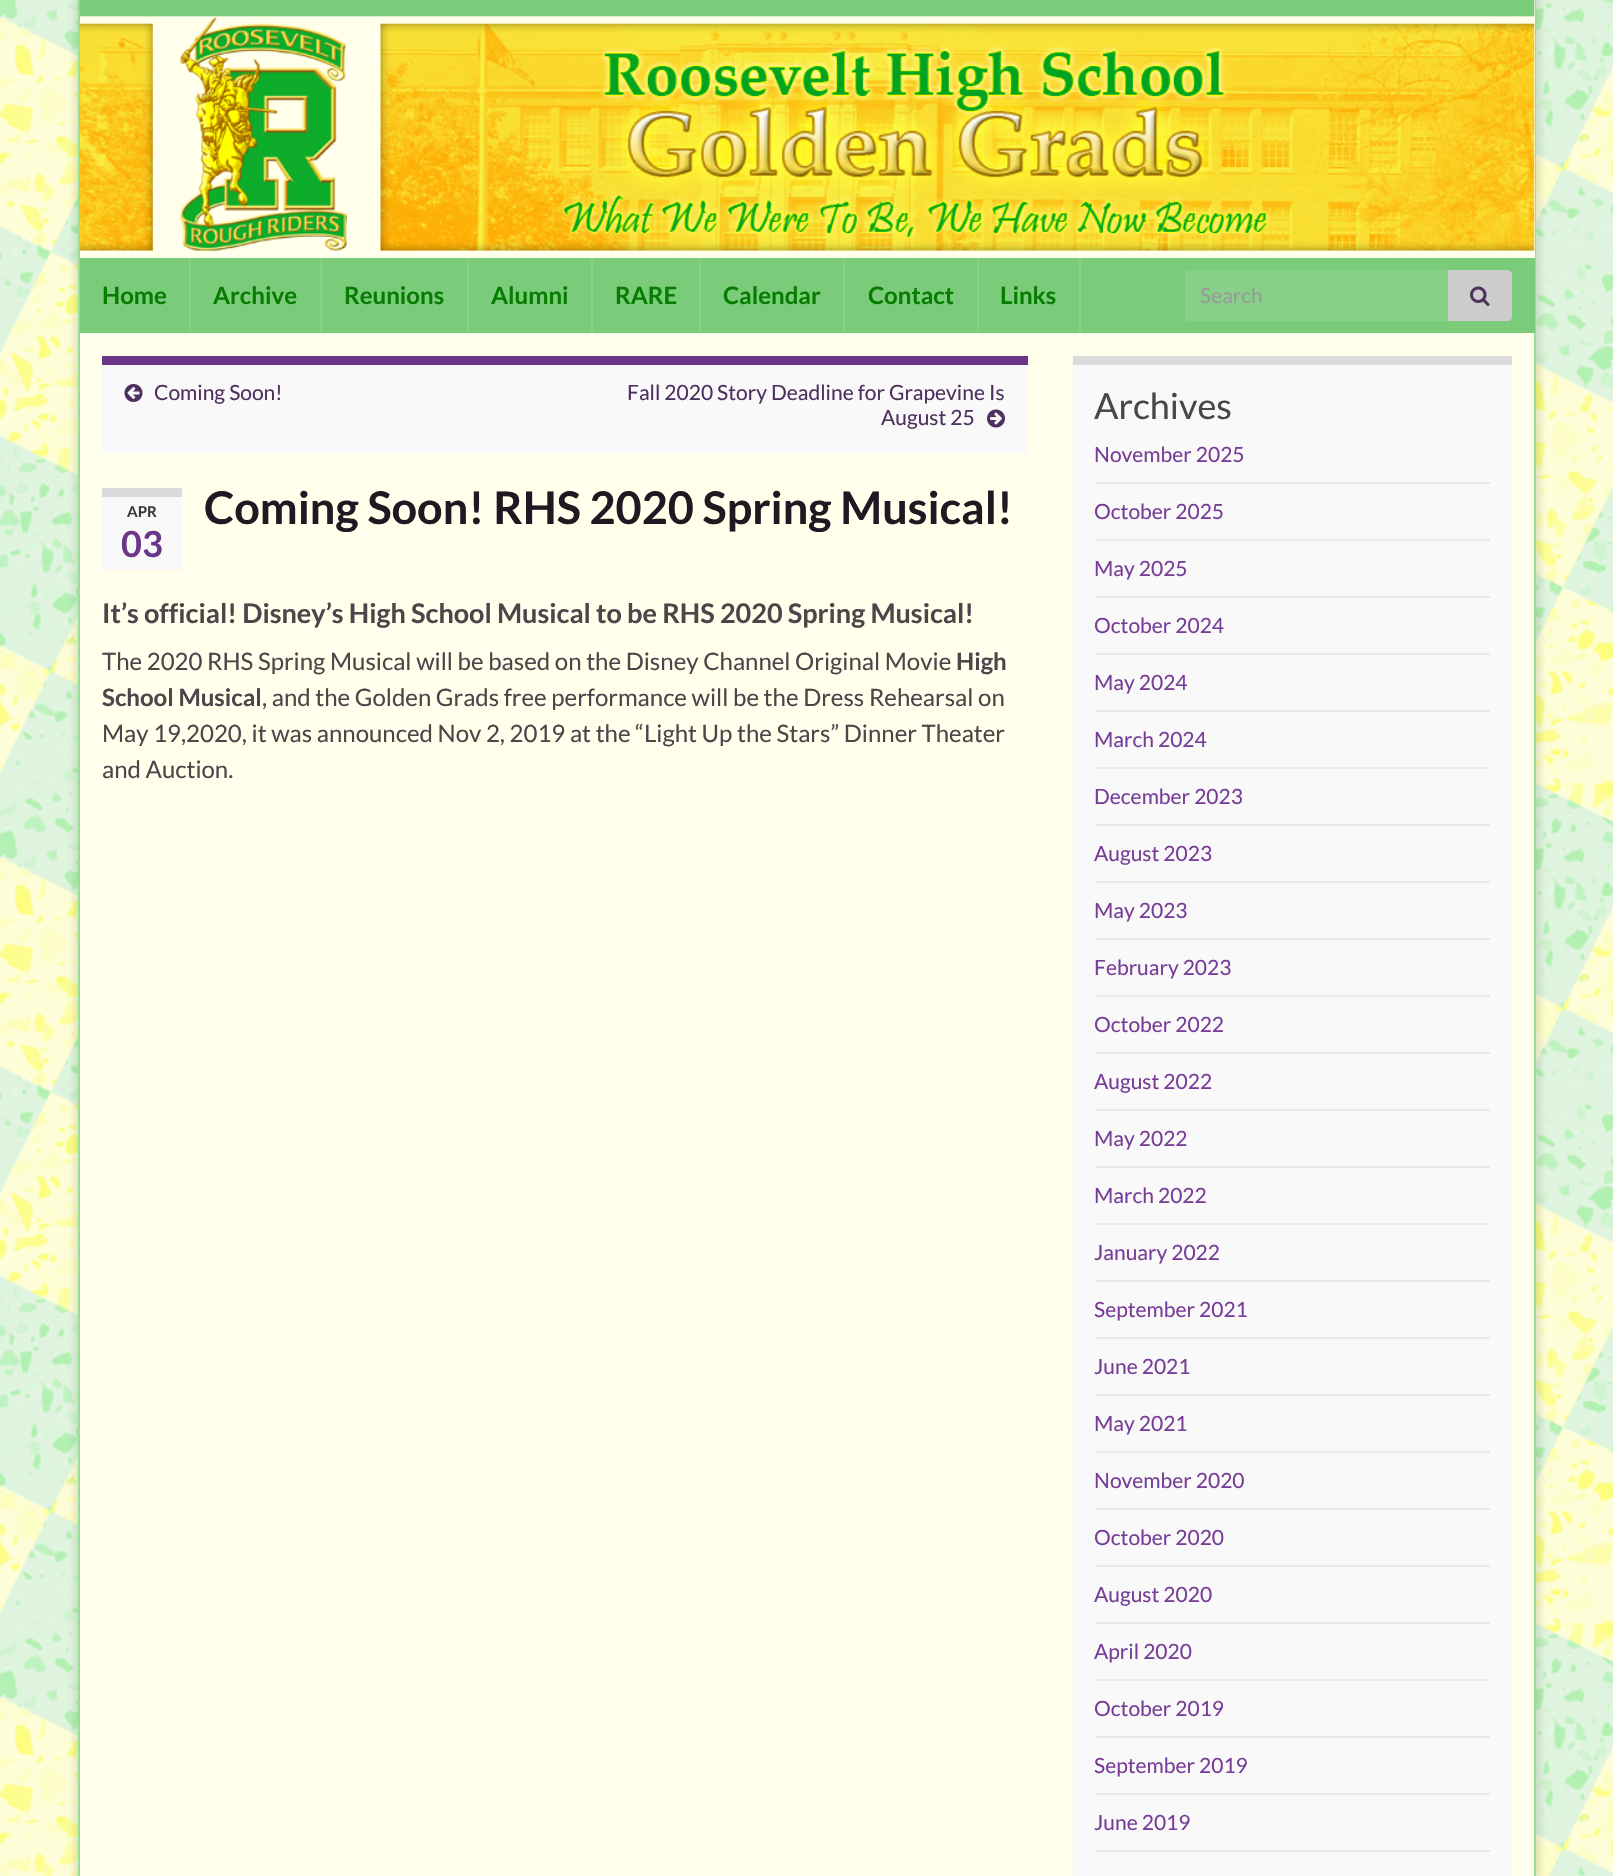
void draw(SkCanvas* canvas) {
    SkPaint paint;
    paint.setAntiAlias(true);
    canvas->clear(0xFFFFFFFF);
    canvas->drawImageRect(SkImages::DeferredFromEncodedData(SkData::MakeFromFileName("img1.png")), SkRect::MakeXYWH(0, 0, 1613, 1876), SkSamplingOptions());
    paint.setColor(0x264B6432);
    paint.setMaskFilter(SkMaskFilter::MakeBlur(kNormal_SkBlurStyle, 3));
    canvas->drawRect(SkRect::MakeXYWH(74, -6, 1467, 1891), paint);
    paint.setMaskFilter(nullptr);
    paint.setColor(0xFFFFFFEB);
    canvas->drawRect(SkRect::MakeXYWH(80, 333, 1454, 1543), paint);
    paint.setStyle(SkPaint::kStroke_Style);
    paint.setStrokeWidth(2);
    paint.setColor(0xFF99DD99);
    canvas->drawRect(SkRect::MakeXYWH(79, 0, 1456, 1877), paint);
    paint.setStyle(SkPaint::kFill_Style);
    paint.setColor(0xFFFFFFEB);
    canvas->drawRect(SkRect::MakeXYWH(80, 0, 1455, 258), paint);
    canvas->drawImageRect(SkImages::DeferredFromEncodedData(SkData::MakeFromFileName("img2.png")), SkRect::MakeXYWH(79, 0, 1456, 251), SkSamplingOptions());
    paint.setColor(0xFF7ACB7A);
    canvas->drawRect(SkRect::MakeXYWH(80, 258, 1455, 75), paint);
    paint.setColor(0xFF87D087);
    canvas->drawRect(SkRect::MakeXYWH(189, 258, 2, 75), paint);
    SkFont font1(fontMgr->matchFamilyStyle("Lato", SkFontStyle::Bold()), 24);
    font1.setSubpixel(true);
    paint.setColor(0xFF067C00);
    canvas->drawString("Home", 102, 304, font1, paint);
    paint.setColor(0xFF87D087);
    canvas->drawRect(SkRect::MakeXYWH(320, 258, 2, 75), paint);
    paint.setColor(0xFF067C00);
    canvas->drawString("Archive", 213, 304, font1, paint);
    paint.setColor(0xFF87D087);
    canvas->drawRect(SkRect::MakeXYWH(467, 258, 2, 75), paint);
    paint.setColor(0xFF067C00);
    canvas->drawString("Reunions", 344, 304, font1, paint);
    paint.setColor(0xFF87D087);
    canvas->drawRect(SkRect::MakeXYWH(591, 258, 2, 75), paint);
    paint.setColor(0xFF067C00);
    canvas->drawString("Alumni", 491, 304, font1, paint);
    paint.setColor(0xFF87D087);
    canvas->drawRect(SkRect::MakeXYWH(699, 258, 2, 75), paint);
    paint.setColor(0xFF067C00);
    canvas->drawString("RARE", 615, 304, font1, paint);
    paint.setColor(0xFF87D087);
    canvas->drawRect(SkRect::MakeXYWH(843, 258, 2, 75), paint);
    paint.setColor(0xFF067C00);
    canvas->drawString("Calendar", 723, 304, font1, paint);
    paint.setColor(0xFF87D087);
    canvas->drawRect(SkRect::MakeXYWH(977, 258, 2, 75), paint);
    paint.setColor(0xFF067C00);
    canvas->drawString("Contact", 868, 304, font1, paint);
    paint.setColor(0xFF87D087);
    canvas->drawRect(SkRect::MakeXYWH(1079, 258, 2, 75), paint);
    paint.setColor(0xFF067C00);
    canvas->drawString("Links", 1000, 304, font1, paint);
    paint.setColor(0xFF87D087);
    canvas->drawRect(SkRect::MakeXYWH(1185, 270, 263, 51), paint);
    SkFont font2(fontMgr->matchFamilyStyle("Lato", SkFontStyle::Normal()), 21);
    font2.setSubpixel(true);
    paint.setColor(0xFF999999);
    canvas->drawString("Search", 1200, 303, font2, paint);
    paint.setColor(0xFFCCCCCC);
    canvas->drawPath(SkPathBuilder().moveTo(1448, 270).lineTo(1507, 270).cubicTo(1510, 270, 1512, 272, 1512, 275).lineTo(1512, 316).cubicTo(1512, 319, 1510, 321, 1507, 321).lineTo(1448, 321).close().detach(), paint);
    canvas->drawImageRect(SkImages::DeferredFromEncodedData(SkData::MakeFromFileName("img3.png")), SkRect::MakeXYWH(1470, 286, 20, 20), SkSamplingOptions());
    paint.setColor(0xFFF9F9F9);
    canvas->drawRect(SkRect::MakeXYWH(102, 365, 926, 88), paint);
    paint.setColor(0xFF6B3589);
    canvas->drawRect(SkRect::MakeXYWH(102, 356, 926, 9), paint);
    canvas->drawImageRect(SkImages::DeferredFromEncodedData(SkData::MakeFromFileName("img4.png")), SkRect::MakeXYWH(124, 384, 19, 18), SkSamplingOptions());
    paint.setColor(0xFF4E305E);
    canvas->drawString("Coming Soon!", 154, 400, font2, paint);
    canvas->drawString("Fall 2020 Story Deadline for Grapevine Is", 627, 400, font2, paint);
    canvas->drawString("August 25", 881, 425, font2, paint);
    canvas->drawImageRect(SkImages::DeferredFromEncodedData(SkData::MakeFromFileName("img5.png")), SkRect::MakeXYWH(987, 409, 18, 19), SkSamplingOptions());
    paint.setColor(0xFFF9F9F9);
    canvas->drawRect(SkRect::MakeXYWH(102, 497, 80, 73), paint);
    paint.setColor(0xFFDBDBDB);
    canvas->drawRect(SkRect::MakeXYWH(102, 488, 80, 9), paint);
    SkFont font3(fontMgr->matchFamilyStyle("Lato", SkFontStyle::Bold()), 15);
    font3.setSubpixel(true);
    paint.setColor(0xFF3B383D);
    canvas->drawString("APR", 127, 517, font3, paint);
    SkFont font4(fontMgr->matchFamilyStyle("Lato", SkFontStyle::Bold()), 36);
    font4.setSubpixel(true);
    paint.setColor(0xFF6B3589);
    canvas->drawString("03", 121, 557, font4, paint);
    SkFont font5(fontMgr->matchFamilyStyle("Lato", SkFontStyle::Bold()), 45);
    font5.setSubpixel(true);
    paint.setColor(0xFF1F1A22);
    canvas->drawString("Coming Soon! RHS 2020 Spring Musical!", 204, 524, font5, paint);
    SkFont font6(fontMgr->matchFamilyStyle("Lato", SkFontStyle::Bold()), 27);
    font6.setSubpixel(true);
    paint.setColor(0xFF4A474B);
    canvas->drawString("It’s official! Disney’s High School Musical to be RHS 2020 Spring Musical!", 102, 623, font6, paint);
    SkFont font7(fontMgr->matchFamilyStyle("Lato", SkFontStyle::Normal()), 24);
    font7.setSubpixel(true);
    canvas->drawString("The 2020 RHS Spring Musical will be based on the Disney Channel Original Movie", 102, 670, font7, paint);
    canvas->drawString("High", 956, 670, font1, paint);
    canvas->drawString("School Musical", 102, 706, font1, paint);
    canvas->drawString(", and the Golden Grads free performance will be the Dress Rehearsal on", 262, 706, font7, paint);
    canvas->drawString("May 19,2020, it was announced Nov 2, 2019 at the “Light Up the Stars” Dinner Theater", 102, 742, font7, paint);
    canvas->drawString("and Auction.", 102, 778, font7, paint);
    paint.setColor(0xFFF9F9F9);
    canvas->drawRect(SkRect::MakeXYWH(1073, 365, 439, 1511), paint);
    paint.setColor(0xFFDBDBDB);
    canvas->drawRect(SkRect::MakeXYWH(1073, 356, 439, 9), paint);
    SkFont font8(fontMgr->matchFamilyStyle("Lato", SkFontStyle::Normal()), 36);
    font8.setSubpixel(true);
    paint.setColor(0xFF4A474B);
    canvas->drawString("Archives", 1094, 419, font8, paint);
    paint.setColor(0xFFE9E9E9);
    canvas->drawRect(SkRect::MakeXYWH(1095, 482, 395, 2), paint);
    paint.setColor(0xFF783D98);
    canvas->drawString("November 2025", 1094, 462, font2, paint);
    paint.setColor(0xFFE9E9E9);
    canvas->drawRect(SkRect::MakeXYWH(1095, 539, 395, 2), paint);
    paint.setColor(0xFF783D98);
    canvas->drawString("October 2025", 1094, 519, font2, paint);
    paint.setColor(0xFFE9E9E9);
    canvas->drawRect(SkRect::MakeXYWH(1095, 596, 395, 2), paint);
    paint.setColor(0xFF783D98);
    canvas->drawString("May 2025", 1094, 576, font2, paint);
    paint.setColor(0xFFE9E9E9);
    canvas->drawRect(SkRect::MakeXYWH(1095, 653, 395, 2), paint);
    paint.setColor(0xFF783D98);
    canvas->drawString("October 2024", 1094, 633, font2, paint);
    paint.setColor(0xFFE9E9E9);
    canvas->drawRect(SkRect::MakeXYWH(1095, 710, 395, 2), paint);
    paint.setColor(0xFF783D98);
    canvas->drawString("May 2024", 1094, 690, font2, paint);
    paint.setColor(0xFFE9E9E9);
    canvas->drawRect(SkRect::MakeXYWH(1095, 767, 395, 2), paint);
    paint.setColor(0xFF783D98);
    canvas->drawString("March 2024", 1094, 747, font2, paint);
    paint.setColor(0xFFE9E9E9);
    canvas->drawRect(SkRect::MakeXYWH(1095, 824, 395, 2), paint);
    paint.setColor(0xFF783D98);
    canvas->drawString("December 2023", 1094, 804, font2, paint);
    paint.setColor(0xFFE9E9E9);
    canvas->drawRect(SkRect::MakeXYWH(1095, 881, 395, 2), paint);
    paint.setColor(0xFF783D98);
    canvas->drawString("August 2023", 1094, 861, font2, paint);
    paint.setColor(0xFFE9E9E9);
    canvas->drawRect(SkRect::MakeXYWH(1095, 938, 395, 2), paint);
    paint.setColor(0xFF783D98);
    canvas->drawString("May 2023", 1094, 918, font2, paint);
    paint.setColor(0xFFE9E9E9);
    canvas->drawRect(SkRect::MakeXYWH(1095, 995, 395, 2), paint);
    paint.setColor(0xFF783D98);
    canvas->drawString("February 2023", 1094, 975, font2, paint);
    paint.setColor(0xFFE9E9E9);
    canvas->drawRect(SkRect::MakeXYWH(1095, 1052, 395, 2), paint);
    paint.setColor(0xFF783D98);
    canvas->drawString("October 2022", 1094, 1032, font2, paint);
    paint.setColor(0xFFE9E9E9);
    canvas->drawRect(SkRect::MakeXYWH(1095, 1109, 395, 2), paint);
    paint.setColor(0xFF783D98);
    canvas->drawString("August 2022", 1094, 1089, font2, paint);
    paint.setColor(0xFFE9E9E9);
    canvas->drawRect(SkRect::MakeXYWH(1095, 1166, 395, 2), paint);
    paint.setColor(0xFF783D98);
    canvas->drawString("May 2022", 1094, 1146, font2, paint);
    paint.setColor(0xFFE9E9E9);
    canvas->drawRect(SkRect::MakeXYWH(1095, 1223, 395, 2), paint);
    paint.setColor(0xFF783D98);
    canvas->drawString("March 2022", 1094, 1203, font2, paint);
    paint.setColor(0xFFE9E9E9);
    canvas->drawRect(SkRect::MakeXYWH(1095, 1280, 395, 2), paint);
    paint.setColor(0xFF783D98);
    canvas->drawString("January 2022", 1094, 1260, font2, paint);
    paint.setColor(0xFFE9E9E9);
    canvas->drawRect(SkRect::MakeXYWH(1095, 1337, 395, 2), paint);
    paint.setColor(0xFF783D98);
    canvas->drawString("September 2021", 1094, 1317, font2, paint);
    paint.setColor(0xFFE9E9E9);
    canvas->drawRect(SkRect::MakeXYWH(1095, 1394, 395, 2), paint);
    paint.setColor(0xFF783D98);
    canvas->drawString("June 2021", 1094, 1374, font2, paint);
    paint.setColor(0xFFE9E9E9);
    canvas->drawRect(SkRect::MakeXYWH(1095, 1451, 395, 2), paint);
    paint.setColor(0xFF783D98);
    canvas->drawString("May 2021", 1094, 1431, font2, paint);
    paint.setColor(0xFFE9E9E9);
    canvas->drawRect(SkRect::MakeXYWH(1095, 1508, 395, 2), paint);
    paint.setColor(0xFF783D98);
    canvas->drawString("November 2020", 1094, 1488, font2, paint);
    paint.setColor(0xFFE9E9E9);
    canvas->drawRect(SkRect::MakeXYWH(1095, 1565, 395, 2), paint);
    paint.setColor(0xFF783D98);
    canvas->drawString("October 2020", 1094, 1545, font2, paint);
    paint.setColor(0xFFE9E9E9);
    canvas->drawRect(SkRect::MakeXYWH(1095, 1622, 395, 2), paint);
    paint.setColor(0xFF783D98);
    canvas->drawString("August 2020", 1094, 1602, font2, paint);
    paint.setColor(0xFFE9E9E9);
    canvas->drawRect(SkRect::MakeXYWH(1095, 1679, 395, 2), paint);
    paint.setColor(0xFF783D98);
    canvas->drawString("April 2020", 1094, 1659, font2, paint);
    paint.setColor(0xFFE9E9E9);
    canvas->drawRect(SkRect::MakeXYWH(1095, 1736, 395, 2), paint);
    paint.setColor(0xFF783D98);
    canvas->drawString("October 2019", 1094, 1716, font2, paint);
    paint.setColor(0xFFE9E9E9);
    canvas->drawRect(SkRect::MakeXYWH(1095, 1793, 395, 2), paint);
    paint.setColor(0xFF783D98);
    canvas->drawString("September 2019", 1094, 1773, font2, paint);
    paint.setColor(0xFFE9E9E9);
    canvas->drawRect(SkRect::MakeXYWH(1095, 1850, 395, 2), paint);
    paint.setColor(0xFF783D98);
    canvas->drawString("June 2019", 1094, 1830, font2, paint);
}
